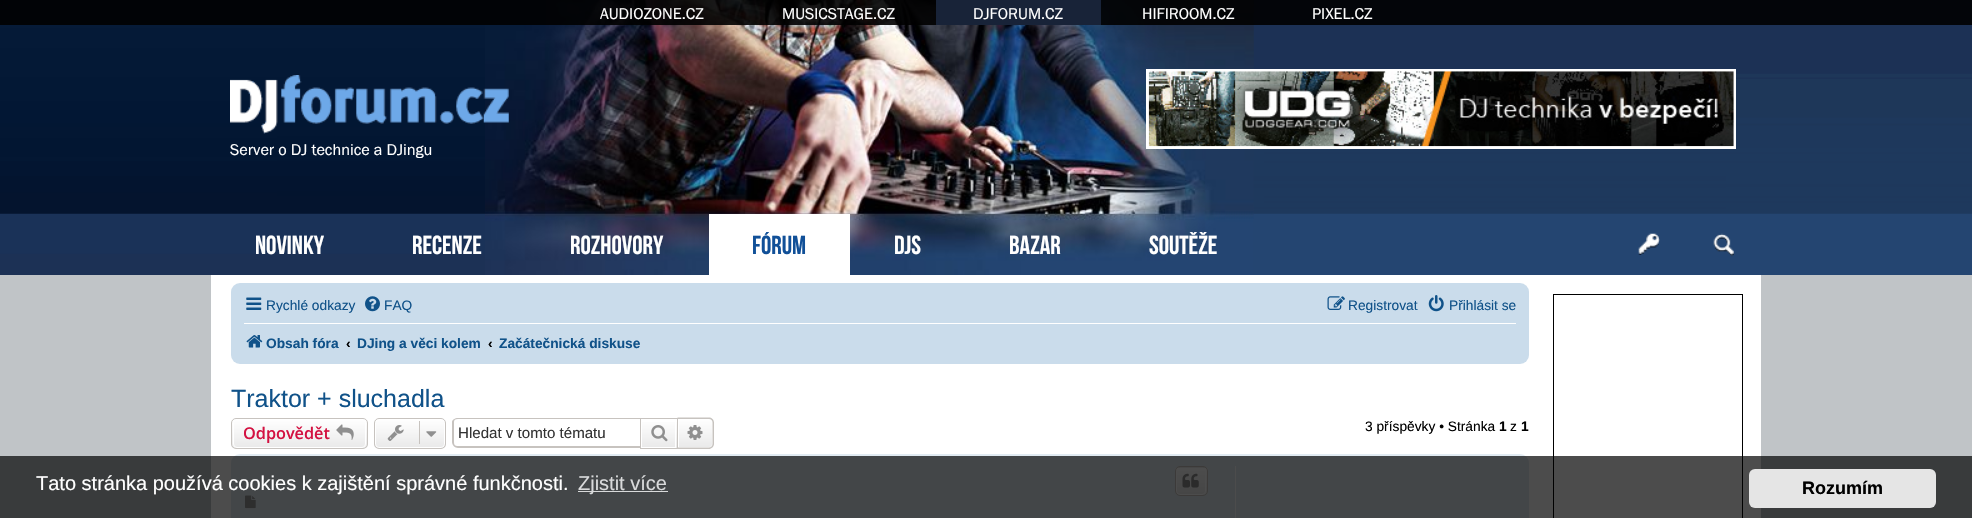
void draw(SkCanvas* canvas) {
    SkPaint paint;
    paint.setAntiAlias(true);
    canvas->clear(0xFFC0C4C7);
    canvas->drawImageRect(SkImages::DeferredFromEncodedData(SkData::MakeFromFileName("img1.png")), SkRect::MakeXYWH(0, 0, 1972, 275), SkSamplingOptions());
    canvas->drawImageRect(SkImages::DeferredFromEncodedData(SkData::MakeFromFileName("img2.png")), SkRect::MakeXYWH(485, 0, 769, 275), SkSamplingOptions());
    paint.setColor(0xE6000000);
    canvas->drawRect(SkRect::MakeXYWH(0, 0, 1972, 25), paint);
    SkFont font1(fontMgr->matchFamilyStyle("Franklin Gothic", SkFontStyle::Normal()), 16.25f);
    font1.setSubpixel(true);
    paint.setColor(0xFFFFFFFF);
    canvas->drawString("AUDIOZONE.CZ", 600, 19, font1, paint);
    canvas->drawString("MUSICSTAGE.CZ", 782, 19, font1, paint);
    paint.setColor(0xFF182338);
    canvas->drawRect(SkRect::MakeXYWH(936, 0, 165, 25), paint);
    paint.setColor(0xFFFFFFFF);
    canvas->drawString("DJFORUM.CZ", 973, 19, font1, paint);
    canvas->drawString("HIFIROOM.CZ", 1142, 19, font1, paint);
    canvas->drawString("PIXEL.CZ", 1312, 19, font1, paint);
    paint.setStyle(SkPaint::kStroke_Style);
    paint.setStrokeWidth(3);
    canvas->drawRect(SkRect::MakeXYWH(1147.5f, 70.5f, 587, 77), paint);
    canvas->drawImageRect(SkImages::DeferredFromEncodedData(SkData::MakeFromFileName("img3.png")), SkRect::MakeXYWH(1148, 71, 586, 76), SkSamplingOptions());
    canvas->drawImageRect(SkImages::DeferredFromEncodedData(SkData::MakeFromFileName("img4.png")), SkRect::MakeXYWH(230, 75, 279, 59), SkSamplingOptions());
    paint.setStyle(SkPaint::kFill_Style);
    canvas->drawString("Server o DJ technice a DJingu", 230, 155, font1, paint);
    SkFont font2(fontMgr->matchFamilyStyle("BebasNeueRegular", SkFontStyle::Normal()), 26);
    font2.setSubpixel(true);
    canvas->drawString("NOVINKY", 255, 254, font2, paint);
    canvas->drawString("RECENZE", 412, 254, font2, paint);
    canvas->drawString("ROZHOVORY", 570, 254, font2, paint);
    canvas->drawRect(SkRect::MakeXYWH(709, 214, 141, 61), paint);
    paint.setColor(0xFF115098);
    canvas->drawString("FÓRUM", 752, 254, font2, paint);
    paint.setColor(0xFFFFFFFF);
    canvas->drawString("DJS", 894, 254, font2, paint);
    canvas->drawString("BAZAR", 1009, 254, font2, paint);
    canvas->drawString("SOUTĚŽE", 1149, 254, font2, paint);
    canvas->drawImageRect(SkImages::DeferredFromEncodedData(SkData::MakeFromFileName("img5.png")), SkRect::MakeXYWH(1638, 233, 22, 22), SkSamplingOptions());
    canvas->drawImageRect(SkImages::DeferredFromEncodedData(SkData::MakeFromFileName("img6.png")), SkRect::MakeXYWH(1713, 233, 21, 24), SkSamplingOptions());
    canvas->drawRect(SkRect::MakeXYWH(211, 275, 1550, 243), paint);
    paint.setColor(0xFFCADCEB);
    canvas->drawRoundRect(SkRect::MakeXYWH(231, 283, 1298, 81), 9, 9, paint);
    canvas->drawImageRect(SkImages::DeferredFromEncodedData(SkData::MakeFromFileName("img7.png")), SkRect::MakeXYWH(246, 297, 16, 13), SkSamplingOptions());
    SkFont font3(fontMgr->matchFamilyStyle("Liberation Sans", SkFontStyle::Normal()), 13.75f);
    font3.setSubpixel(true);
    paint.setColor(0xFF105289);
    canvas->drawString("Rychlé odkazy", 266, 310, font3, paint);
    canvas->drawImageRect(SkImages::DeferredFromEncodedData(SkData::MakeFromFileName("img8.png")), SkRect::MakeXYWH(365, 296, 15, 16), SkSamplingOptions());
    canvas->drawString("FAQ", 384, 310, font3, paint);
    canvas->drawImageRect(SkImages::DeferredFromEncodedData(SkData::MakeFromFileName("img9.png")), SkRect::MakeXYWH(1327, 296, 18, 14), SkSamplingOptions());
    canvas->drawString("Registrovat", 1348, 310, font3, paint);
    canvas->drawImageRect(SkImages::DeferredFromEncodedData(SkData::MakeFromFileName("img10.png")), SkRect::MakeXYWH(1428, 295, 16, 17), SkSamplingOptions());
    canvas->drawString("Přihlásit se", 1449, 310, font3, paint);
    paint.setColor(0xFFFFFFFF);
    canvas->drawRect(SkRect::MakeXYWH(244, 323, 1272, 1), paint);
    canvas->drawImageRect(SkImages::DeferredFromEncodedData(SkData::MakeFromFileName("img11.png")), SkRect::MakeXYWH(246, 335, 17, 13), SkSamplingOptions());
    SkFont font4(fontMgr->matchFamilyStyle("Liberation Sans", SkFontStyle::Bold()), 13.75f);
    font4.setSubpixel(true);
    paint.setColor(0xFF105289);
    canvas->drawString("Obsah fóra", 266, 348, font4, paint);
    paint.setColor(0xFF000000);
    canvas->drawString("‹", 346, 348, font4, paint);
    paint.setColor(0xFF105289);
    canvas->drawString("DJing a věci kolem", 357, 348, font4, paint);
    paint.setColor(0xFF000000);
    canvas->drawString("‹", 488, 348, font4, paint);
    paint.setColor(0xFF105289);
    canvas->drawString("Začátečnická diskuse", 499, 348, font4, paint);
    SkFont font5(fontMgr->matchFamilyStyle("Liberation Sans", SkFontStyle::Normal()), 25);
    font5.setSubpixel(true);
    canvas->drawString("Traktor + sluchadla", 231, 407, font5, paint);
    canvas->save();
    canvas->clipPath(SkPathBuilder().moveTo(236, 418).lineTo(363, 418).cubicTo(366, 418, 368, 420, 368, 423).lineTo(368, 444).cubicTo(368, 447, 366, 449, 363, 449).lineTo(236, 449).cubicTo(233, 449, 231, 447, 231, 444).lineTo(231, 423).cubicTo(231, 420, 233, 418, 236, 418).close().detach(), true);
    {
        const SkColor colors[] = {0xFFFFFFFF, 0xFFE9E9E9};
        const float stops[] = {0, 1};
        const SkPoint ends[] = {{299, 419}, {299, 448}};
        paint.setShader(SkGradientShader::MakeLinear(ends, colors, stops, 2, SkTileMode::kClamp));
        paint.setAlpha(255);
    }
    canvas->drawRect(SkRect::MakeXYWH(231, 419, 137, 29), paint);
    canvas->restore();
    paint.setStyle(SkPaint::kStroke_Style);
    paint.setStrokeWidth(1);
    paint.setShader(nullptr);
    paint.setColor(0xFFFFFFFF);
    canvas->drawRoundRect(SkRect::MakeXYWH(233.5f, 419.5f, 132, 28), 3.5f, 3.5f, paint);
    paint.setColor(0xFFC7C3BF);
    canvas->drawRoundRect(SkRect::MakeXYWH(231.5f, 418.5f, 136, 30), 4.5f, 4.5f, paint);
    SkFont font6(fontMgr->matchFamilyStyle("Open Sans", SkFontStyle(600, SkFontStyle::kNormal_Width, SkFontStyle::kUpright_Slant)), 16.25f);
    font6.setSubpixel(true);
    paint.setStyle(SkPaint::kFill_Style);
    paint.setColor(0xFFD31141);
    canvas->drawString("Odpovědět", 243, 439, font6, paint);
    canvas->drawImageRect(SkImages::DeferredFromEncodedData(SkData::MakeFromFileName("img12.png")), SkRect::MakeXYWH(336, 424, 18, 16), SkSamplingOptions());
    canvas->save();
    canvas->clipPath(SkPathBuilder().moveTo(379, 418).lineTo(441, 418).cubicTo(444, 418, 446, 420, 446, 423).lineTo(446, 444).cubicTo(446, 447, 444, 449, 441, 449).lineTo(379, 449).cubicTo(376, 449, 374, 447, 374, 444).lineTo(374, 423).cubicTo(374, 420, 376, 418, 379, 418).close().detach(), true);
    {
        const SkColor colors[] = {0xFFFFFFFF, 0xFFE9E9E9};
        const float stops[] = {0, 1};
        const SkPoint ends[] = {{410, 419}, {410, 448}};
        paint.setShader(SkGradientShader::MakeLinear(ends, colors, stops, 2, SkTileMode::kClamp));
        paint.setAlpha(255);
    }
    canvas->drawRect(SkRect::MakeXYWH(374, 419, 72, 29), paint);
    canvas->restore();
    paint.setStyle(SkPaint::kStroke_Style);
    paint.setShader(nullptr);
    paint.setColor(0xFFFFFFFF);
    canvas->drawRoundRect(SkRect::MakeXYWH(375.5f, 419.5f, 69, 28), 3.5f, 3.5f, paint);
    paint.setColor(0xFFC7C3BF);
    canvas->drawRoundRect(SkRect::MakeXYWH(374.5f, 418.5f, 71, 30), 4.5f, 4.5f, paint);
    canvas->drawImageRect(SkImages::DeferredFromEncodedData(SkData::MakeFromFileName("img13.png")), SkRect::MakeXYWH(387, 425, 17, 16), SkSamplingOptions());
    paint.setStyle(SkPaint::kFill_Style);
    canvas->drawRect(SkRect::MakeXYWH(419, 421, 1, 23), paint);
    canvas->drawImageRect(SkImages::DeferredFromEncodedData(SkData::MakeFromFileName("img14.png")), SkRect::MakeXYWH(426, 431, 11, 6), SkSamplingOptions());
    canvas->drawPath(SkPathBuilder(SkPathFillType::kEvenOdd).moveTo(458, 418).lineTo(640, 418).lineTo(640, 448).lineTo(458, 448).cubicTo(455, 448, 452, 445, 452, 442).lineTo(452, 422).cubicTo(452, 420, 455, 418, 458, 418).close().moveTo(458, 419).lineTo(640, 419).lineTo(640, 446).lineTo(458, 446).cubicTo(455, 446, 454, 445, 454, 442).lineTo(454, 422).cubicTo(454, 420, 455, 419, 458, 419).close().detach(), paint);
    SkFont font7(fontMgr->matchFamilyStyle("Liberation Sans", SkFontStyle::Normal()), 15.1f);
    font7.setSubpixel(true);
    paint.setColor(0xFF333333);
    canvas->drawString("Hledat v tomto tématu", 458, 438, font7, paint);
    {
        const SkColor colors[] = {0xFFFFFFFF, 0xFFE9E9E9};
        const float stops[] = {0, 1};
        const SkPoint ends[] = {{659, 419}, {659, 448}};
        paint.setShader(SkGradientShader::MakeLinear(ends, colors, stops, 2, SkTileMode::kClamp));
        paint.setAlpha(255);
    }
    canvas->drawRect(SkRect::MakeXYWH(642, 422, 35, 26), paint);
    paint.setStyle(SkPaint::kStroke_Style);
    paint.setShader(nullptr);
    paint.setColor(0xFFFFFFFF);
    canvas->drawRect(SkRect::MakeXYWH(641.5f, 419.5f, 34, 28), paint);
    paint.setColor(0xFFC7C3BF);
    canvas->drawRect(SkRect::MakeXYWH(640.5f, 418.5f, 37, 30), paint);
    canvas->drawImageRect(SkImages::DeferredFromEncodedData(SkData::MakeFromFileName("img15.png")), SkRect::MakeXYWH(651, 425, 17, 17), SkSamplingOptions());
    paint.setStyle(SkPaint::kFill_Style);
    {
        const SkColor colors[] = {0xFFFFFFFF, 0xFFE9E9E9};
        const float stops[] = {0, 1};
        const SkPoint ends[] = {{695, 419}, {695, 448}};
        paint.setShader(SkGradientShader::MakeLinear(ends, colors, stops, 2, SkTileMode::kClamp));
        paint.setAlpha(255);
    }
    canvas->drawPath(SkPathBuilder().moveTo(678.5f, 419.5f).lineTo(709, 419.5f).cubicTo(711, 419.5f, 712.5f, 421, 712.5f, 423).lineTo(712.5f, 444).cubicTo(712.5f, 446, 711, 447.5f, 709, 447.5f).lineTo(678.5f, 447.5f).close().detach(), paint);
    paint.setStyle(SkPaint::kStroke_Style);
    paint.setShader(nullptr);
    paint.setColor(0xFFFFFFFF);
    canvas->drawPath(SkPathBuilder().moveTo(678.5f, 419.5f).lineTo(709, 419.5f).cubicTo(711, 419.5f, 712.5f, 421, 712.5f, 423).lineTo(712.5f, 444).cubicTo(712.5f, 446, 711, 447.5f, 709, 447.5f).lineTo(678.5f, 447.5f).close().detach(), paint);
    paint.setStyle(SkPaint::kFill_Style);
    paint.setColor(0xFFC7C3BF);
    canvas->drawPath(SkPathBuilder(SkPathFillType::kEvenOdd).moveTo(677.5f, 417.5f).lineTo(709, 417.5f).cubicTo(711.5f, 417.5f, 714, 419.5f, 714, 422.5f).lineTo(714, 444).cubicTo(714, 446.5f, 711.5f, 449, 709, 449).lineTo(677.5f, 449).close().moveTo(677.5f, 419).lineTo(709, 419).cubicTo(711, 419, 712.5f, 420.5f, 712.5f, 422.5f).lineTo(712.5f, 444).cubicTo(712.5f, 446, 711, 447.5f, 709, 447.5f).lineTo(677.5f, 447.5f).close().detach(), paint);
    canvas->drawImageRect(SkImages::DeferredFromEncodedData(SkData::MakeFromFileName("img16.png")), SkRect::MakeXYWH(687, 425, 16, 15), SkSamplingOptions());
    paint.setColor(0xFF000000);
    canvas->drawString("3 příspěvky • Stránka", 1365, 431, font3, paint);
    canvas->drawString("1", 1499, 431, font4, paint);
    canvas->drawString("z", 1510, 431, font3, paint);
    canvas->drawString("1", 1521, 431, font4, paint);
    paint.setColor(0xFFE1EBF2);
    canvas->drawRoundRect(SkRect::MakeXYWH(231, 454, 1298, 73), 9, 9, paint);
    canvas->save();
    canvas->clipPath(SkPathBuilder().moveTo(1180, 466).lineTo(1203, 466).cubicTo(1206, 466, 1208, 468, 1208, 471).lineTo(1208, 491).cubicTo(1208, 494, 1206, 496, 1203, 496).lineTo(1180, 496).cubicTo(1177, 496, 1175, 494, 1175, 491).lineTo(1175, 471).cubicTo(1175, 468, 1177, 466, 1180, 466).close().detach(), true);
    {
        const SkColor colors[] = {0xFFFFFFFF, 0xFFE9E9E9};
        const float stops[] = {0, 1};
        const SkPoint ends[] = {{1191, 440}, {1191, 468}};
        paint.setShader(SkGradientShader::MakeLinear(ends, colors, stops, 2, SkTileMode::kClamp));
        paint.setAlpha(255);
    }
    canvas->drawRect(SkRect::MakeXYWH(1175, 466, 33, 2), paint);
    {
        const SkColor colors[] = {0xFFFFFFFF, 0xFFE9E9E9};
        const float stops[] = {0, 1};
        const SkPoint ends[] = {{1191, 468}, {1191, 495}};
        paint.setShader(SkGradientShader::MakeLinear(ends, colors, stops, 2, SkTileMode::kClamp));
        paint.setAlpha(255);
    }
    canvas->drawRect(SkRect::MakeXYWH(1175, 468, 33, 27), paint);
    canvas->restore();
    paint.setStyle(SkPaint::kStroke_Style);
    paint.setShader(nullptr);
    paint.setColor(0xFFFFFFFF);
    canvas->drawRoundRect(SkRect::MakeXYWH(1176.5f, 468.5f, 29, 26), 3.5f, 3.5f, paint);
    paint.setColor(0xFFC7C3BF);
    canvas->drawRoundRect(SkRect::MakeXYWH(1175.5f, 466.5f, 32, 29), 4.5f, 4.5f, paint);
    canvas->drawImageRect(SkImages::DeferredFromEncodedData(SkData::MakeFromFileName("img17.png")), SkRect::MakeXYWH(1182, 473, 17, 15), SkSamplingOptions());
    canvas->drawImageRect(SkImages::DeferredFromEncodedData(SkData::MakeFromFileName("img18.png")), SkRect::MakeXYWH(245, 495, 11, 14), SkSamplingOptions());
    paint.setStyle(SkPaint::kFill_Style);
    paint.setColor(0xFFFFFFFF);
    canvas->drawRect(SkRect::MakeXYWH(1235, 466, 1, 52), paint);
    paint.setStyle(SkPaint::kStroke_Style);
    paint.setColor(0xFF000000);
    canvas->drawRect(SkRect::MakeXYWH(1553.5f, 294.5f, 189, 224), paint);
    paint.setStyle(SkPaint::kFill_Style);
    paint.setColor(0xB3000000);
    canvas->drawRect(SkRect::MakeXYWH(0, 456, 1972, 62), paint);
    SkFont font8(fontMgr->matchFamilyStyle("Liberation Sans", SkFontStyle::Normal()), 20);
    font8.setSubpixel(true);
    paint.setColor(0xFFFFFFFF);
    canvas->drawString("Tato stránka používá cookies k zajištění správné funkčnosti.", 36, 490, font8, paint);
    paint.setColor(0xFFD9DADB);
    canvas->drawRect(SkRect::MakeXYWH(578, 491, 90, 1), paint);
    canvas->drawString("Zjistit více", 578, 490, font8, paint);
    paint.setColor(0xFFE5E5E5);
    canvas->drawRoundRect(SkRect::MakeXYWH(1749, 469, 187, 39), 6, 6, paint);
    SkFont font9(fontMgr->matchFamilyStyle("Liberation Sans", SkFontStyle::Bold()), 18);
    font9.setSubpixel(true);
    paint.setColor(0xFF000000);
    canvas->drawString("Rozumím", 1802, 494, font9, paint);
}
